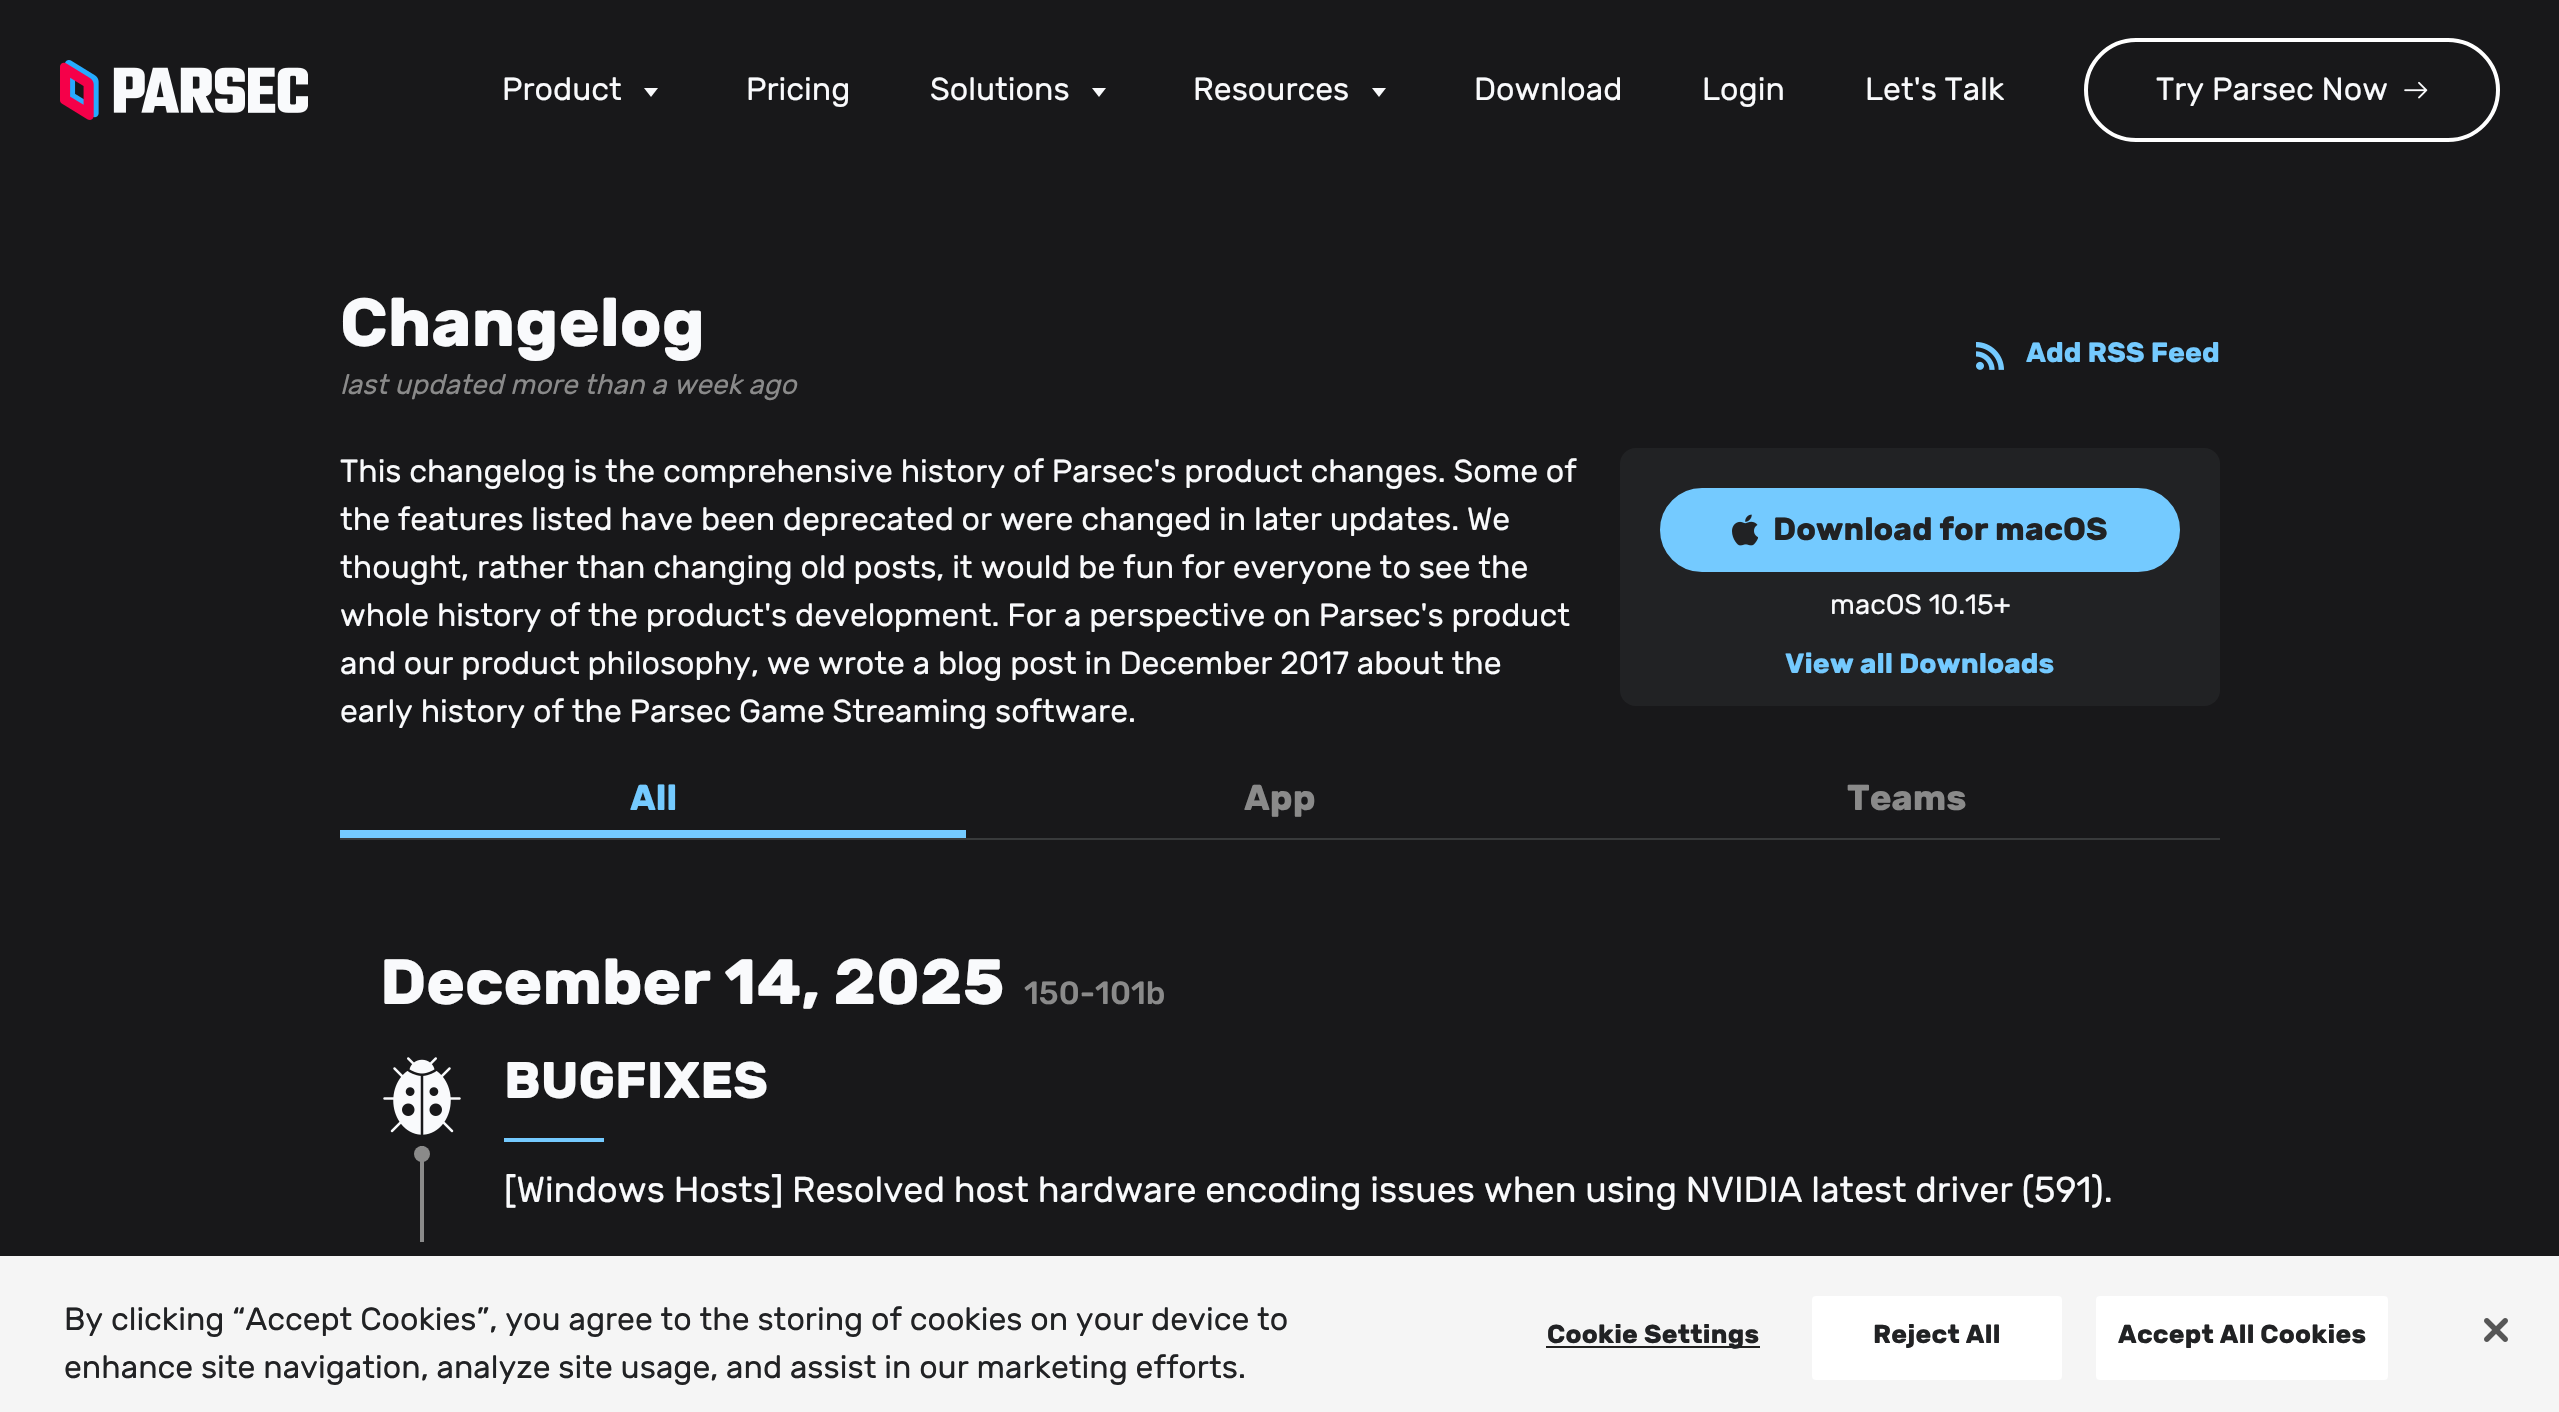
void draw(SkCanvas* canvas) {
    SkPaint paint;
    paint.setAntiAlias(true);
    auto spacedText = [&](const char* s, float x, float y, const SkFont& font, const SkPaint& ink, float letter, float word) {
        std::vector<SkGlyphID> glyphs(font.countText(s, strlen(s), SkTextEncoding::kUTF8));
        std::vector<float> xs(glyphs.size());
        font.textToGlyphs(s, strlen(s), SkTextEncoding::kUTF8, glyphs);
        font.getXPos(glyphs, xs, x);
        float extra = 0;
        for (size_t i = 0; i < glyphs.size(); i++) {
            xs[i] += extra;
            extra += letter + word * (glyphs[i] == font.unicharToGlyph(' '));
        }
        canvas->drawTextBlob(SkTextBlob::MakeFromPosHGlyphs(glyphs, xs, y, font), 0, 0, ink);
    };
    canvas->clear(0xFF18181A);
    canvas->drawImageRect(SkImages::DeferredFromEncodedData(SkData::MakeFromFileName("img1.png")), SkRect::MakeXYWH(60, 60, 248, 60), SkSamplingOptions());
    SkFont font1(fontMgr->matchFamilyStyle("Rubik", SkFontStyle::Normal()), 32);
    font1.setSubpixel(true);
    paint.setColor(0xFFF9FAFC);
    canvas->drawString("Product", 502, 100, font1, paint);
    canvas->drawPath(SkPathBuilder().moveTo(644, 88).lineTo(658, 88).lineTo(651, 97).close().detach(), paint);
    canvas->drawString("Pricing", 746, 100, font1, paint);
    canvas->drawString("Solutions", 930, 100, font1, paint);
    canvas->drawPath(SkPathBuilder().moveTo(1092, 88).lineTo(1106, 88).lineTo(1099, 97).close().detach(), paint);
    canvas->drawString("Resources", 1193, 100, font1, paint);
    canvas->drawPath(SkPathBuilder().moveTo(1372, 88).lineTo(1386, 88).lineTo(1379, 97).close().detach(), paint);
    canvas->drawString("Download", 1474, 100, font1, paint);
    canvas->drawString("Login", 1702, 100, font1, paint);
    canvas->drawString("Let's Talk", 1865, 100, font1, paint);
    paint.setStyle(SkPaint::kStroke_Style);
    paint.setStrokeWidth(4);
    paint.setColor(0xFFFFFFFF);
    canvas->drawRoundRect(SkRect::MakeXYWH(2086, 40, 412, 100), 50, 50, paint);
    paint.setStyle(SkPaint::kFill_Style);
    paint.setColor(0xFFF9FAFC);
    canvas->drawString("Try Parsec Now", 2156, 100, font1, paint);
    canvas->drawImageRect(SkImages::DeferredFromEncodedData(SkData::MakeFromFileName("img2.png")), SkRect::MakeXYWH(2404, 81, 24, 18), SkSamplingOptions());
    SkFont font2(fontMgr->matchFamilyStyle("Rubik", SkFontStyle::Bold()), 68);
    font2.setSubpixel(true);
    canvas->drawString("Changelog", 340, 346, font2, paint);
    SkFont font3(fontMgr->matchFamilyStyle("Rubik", SkFontStyle::Italic()), 28);
    font3.setSubpixel(true);
    paint.setColor(0xFF8A8A8A);
    canvas->drawString("last updated more than a week ago", 340, 394, font3, paint);
    canvas->drawImageRect(SkImages::DeferredFromEncodedData(SkData::MakeFromFileName("img3.png")), SkRect::MakeXYWH(1976, 342, 28, 28), SkSamplingOptions());
    SkFont font4(fontMgr->matchFamilyStyle("Rubik", SkFontStyle::Bold()), 28);
    font4.setSubpixel(true);
    paint.setColor(0xFF74CAFF);
    canvas->drawString("Add RSS Feed", 2026, 362, font4, paint);
    paint.setColor(0xFFF9FAFC);
    canvas->drawString("This changelog is the comprehensive history of Parsec's product changes. Some of", 340, 482, font1, paint);
    canvas->drawString("the features listed have been deprecated or were changed in later updates. We", 340, 530, font1, paint);
    canvas->drawString("thought, rather than changing old posts, it would be fun for everyone to see the", 340, 578, font1, paint);
    canvas->drawString("whole history of the product's development. For a perspective on Parsec's product", 340, 626, font1, paint);
    canvas->drawString("and our product philosophy, we wrote a blog post in December 2017 about the", 340, 674, font1, paint);
    canvas->drawString("early history of the Parsec Game Streaming software.", 340, 722, font1, paint);
    paint.setColor(0xFF212224);
    canvas->drawRoundRect(SkRect::MakeXYWH(1620, 448, 600, 258), 16, 16, paint);
    paint.setColor(0xFF74CAFF);
    canvas->drawRoundRect(SkRect::MakeXYWH(1661, 489, 518, 82), 41, 41, paint);
    paint.setStyle(SkPaint::kStroke_Style);
    paint.setStrokeWidth(2);
    canvas->drawRoundRect(SkRect::MakeXYWH(1661, 489, 518, 82), 41, 41, paint);
    canvas->drawImageRect(SkImages::DeferredFromEncodedData(SkData::MakeFromFileName("img4.png")), SkRect::MakeXYWH(1732, 514, 26, 32), SkSamplingOptions());
    SkFont font5(fontMgr->matchFamilyStyle("Rubik", SkFontStyle::Bold()), 32);
    font5.setSubpixel(true);
    paint.setStyle(SkPaint::kFill_Style);
    paint.setColor(0xFF212224);
    canvas->drawString("Download for macOS", 1773, 540, font5, paint);
    SkFont font6(fontMgr->matchFamilyStyle("Rubik", SkFontStyle::Normal()), 28);
    font6.setSubpixel(true);
    paint.setColor(0xFFF9FAFC);
    canvas->drawString("macOS 10.15+", 1830, 614, font6, paint);
    paint.setColor(0xFF74CAFF);
    canvas->drawString("View all Downloads", 1785, 673, font4, paint);
    paint.setColor(0xFF383A3B);
    canvas->drawRect(SkRect::MakeXYWH(340, 838, 1880, 2), paint);
    paint.setColor(0xFF74CAFF);
    canvas->drawRect(SkRect::MakeXYWH(340, 830, 626, 8), paint);
    SkFont font7(fontMgr->matchFamilyStyle("Rubik", SkFontStyle::Bold()), 36);
    font7.setSubpixel(true);
    canvas->drawString("All", 630, 810, font7, paint);
    paint.setColor(0xFF8A8A8A);
    canvas->drawString("App", 1244, 810, font7, paint);
    canvas->drawString("Teams", 1847, 810, font7, paint);
    SkFont font8(fontMgr->matchFamilyStyle("Rubik", SkFontStyle::Bold()), 64);
    font8.setSubpixel(true);
    paint.setColor(0xFFF9FAFC);
    canvas->drawString("December 14, 2025", 380, 1004, font8, paint);
    SkFont font9(fontMgr->matchFamilyStyle("Rubik", SkFontStyle(500, SkFontStyle::kNormal_Width, SkFontStyle::kUpright_Slant)), 32);
    font9.setSubpixel(true);
    paint.setColor(0xFF8A8A8A);
    canvas->drawString("150-101b", 1024, 1004, font9, paint);
    canvas->drawImageRect(SkImages::DeferredFromEncodedData(SkData::MakeFromFileName("img5.png")), SkRect::MakeXYWH(383, 1057, 78, 78), SkSamplingOptions());
    canvas->drawRect(SkRect::MakeXYWH(422, 1146, 2, 96), paint);
    canvas->drawRect(SkRect::MakeXYWH(420, 1240, 4, 2), paint);
    canvas->drawRect(SkRect::MakeXYWH(420, 1146, 2, 96), paint);
    canvas->drawCircle(422, 1154, 8, paint);
    SkFont font10(fontMgr->matchFamilyStyle("Rubik", SkFontStyle::Bold()), 51.5f);
    font10.setSubpixel(true);
    paint.setColor(0xFFF9FAFC);
    canvas->drawString("BUGFIXES", 504, 1098, font10, paint);
    paint.setColor(0xFF74CAFF);
    canvas->drawRect(SkRect::MakeXYWH(504, 1138, 100, 4), paint);
    SkFont font11(fontMgr->matchFamilyStyle("Rubik", SkFontStyle::Normal()), 36);
    font11.setSubpixel(true);
    paint.setColor(0xFFF9FAFC);
    canvas->drawString("[Windows Hosts] Resolved host hardware encoding issues when using NVIDIA latest driver (591).", 504, 1202, font11, paint);
    paint.setColor(0xFFF5F5F5);
    canvas->drawRect(SkRect::MakeXYWH(0, 1256, 2559, 156), paint);
    paint.setColor(0xFF212224);
    canvas->drawString("By clicking “Accept Cookies”, you agree to the storing of cookies on your device to", 64, 1330, font1, paint);
    canvas->drawString("enhance site navigation, analyze site usage, and assist in our marketing efforts.", 64, 1378, font1, paint);
    paint.setColor(0xFF212121);
    canvas->drawRect(SkRect::MakeXYWH(1546, 1346, 214, 2), paint);
    SkFont font12(fontMgr->matchFamilyStyle("Rubik", SkFontStyle::Bold()), 26);
    font12.setSubpixel(true);
    paint.setColor(0xFF212224);
    spacedText("Cookie Settings", 1547, 1343, font12, paint, 0.25f, 0);
    paint.setColor(0xFFFFFFFF);
    canvas->drawRoundRect(SkRect::MakeXYWH(1812, 1296, 250, 84), 4, 4, paint);
    paint.setColor(0xFF212224);
    spacedText("Reject All", 1873, 1343, font12, paint, 0.25f, 0);
    paint.setColor(0xFFFFFFFF);
    canvas->drawRoundRect(SkRect::MakeXYWH(2096, 1296, 292, 84), 4, 4, paint);
    paint.setColor(0xFF212224);
    spacedText("Accept All Cookies", 2118, 1343, font12, paint, 0.25f, 0);
    canvas->drawImageRect(SkImages::DeferredFromEncodedData(SkData::MakeFromFileName("img6.png")), SkRect::MakeXYWH(2484, 1318, 24, 24), SkSamplingOptions());
}
